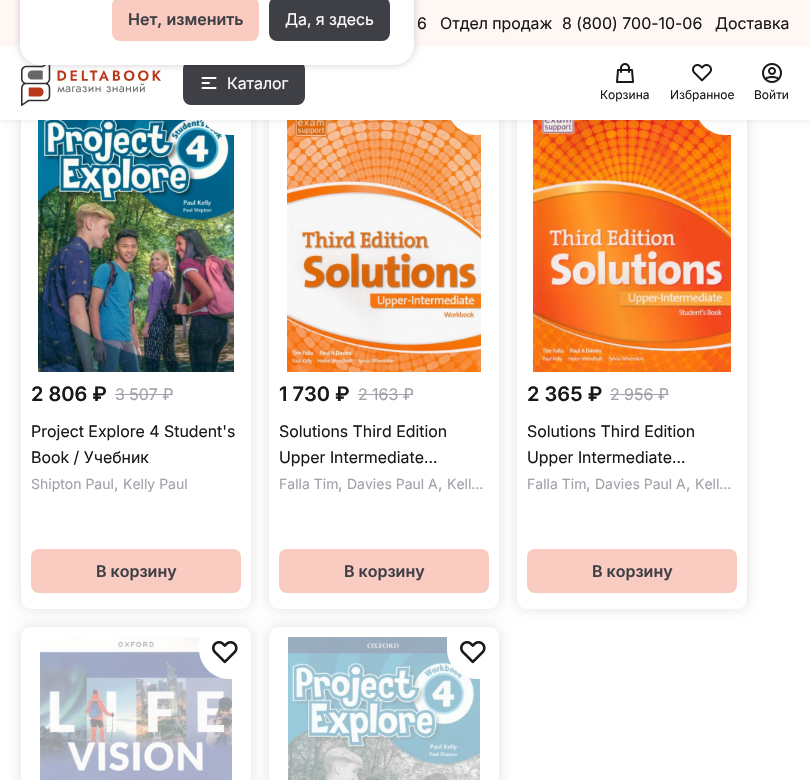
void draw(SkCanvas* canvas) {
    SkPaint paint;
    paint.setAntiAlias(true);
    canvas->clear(0xFFFFFFFF);
    canvas->save();
    canvas->clipPath(SkPathBuilder(SkPathFillType::kEvenOdd).moveTo(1, 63).lineTo(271, 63).lineTo(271, 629).lineTo(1, 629).close().moveTo(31, 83).lineTo(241, 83).cubicTo(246.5f, 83, 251, 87.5f, 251, 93).lineTo(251, 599).cubicTo(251, 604.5f, 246.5f, 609, 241, 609).lineTo(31, 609).cubicTo(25.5f, 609, 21, 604.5f, 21, 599).lineTo(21, 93).cubicTo(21, 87.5f, 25.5f, 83, 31, 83).close().detach(), true);
    paint.setColor(0x1A000000);
    paint.setMaskFilter(SkMaskFilter::MakeBlur(kNormal_SkBlurStyle, 6));
    canvas->drawRoundRect(SkRect::MakeXYWH(20, 82, 232, 528), 11, 11, paint);
    paint.setMaskFilter(nullptr);
    canvas->restore();
    canvas->drawImageRect(SkImages::DeferredFromEncodedData(SkData::MakeFromFileName("img5.png")), SkRect::MakeXYWH(38, 120, 196, 252), SkSamplingOptions());
    canvas->save();
    canvas->clipPath(SkPathBuilder(SkPathFillType::kEvenOdd).moveTo(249, 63).lineTo(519, 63).lineTo(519, 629).lineTo(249, 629).close().moveTo(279, 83).lineTo(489, 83).cubicTo(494.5f, 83, 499, 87.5f, 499, 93).lineTo(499, 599).cubicTo(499, 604.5f, 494.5f, 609, 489, 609).lineTo(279, 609).cubicTo(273.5f, 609, 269, 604.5f, 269, 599).lineTo(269, 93).cubicTo(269, 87.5f, 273.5f, 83, 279, 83).close().detach(), true);
    paint.setMaskFilter(SkMaskFilter::MakeBlur(kNormal_SkBlurStyle, 6));
    canvas->drawRoundRect(SkRect::MakeXYWH(268, 82, 232, 528), 11, 11, paint);
    paint.setMaskFilter(nullptr);
    canvas->restore();
    paint.setColor(0xFFFFFFFF);
    canvas->drawPath(SkPathBuilder().moveTo(199, 83).lineTo(241, 83).cubicTo(246.5f, 83, 251, 87.5f, 251, 93).lineTo(251, 135).lineTo(229, 135).cubicTo(212.5f, 135, 199, 121.5f, 199, 105).close().detach(), paint);
    canvas->drawImageRect(SkImages::DeferredFromEncodedData(SkData::MakeFromFileName("img6.png")), SkRect::MakeXYWH(287, 120, 194, 252), SkSamplingOptions());
    canvas->save();
    canvas->clipPath(SkPathBuilder(SkPathFillType::kEvenOdd).moveTo(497, 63).lineTo(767, 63).lineTo(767, 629).lineTo(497, 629).close().moveTo(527, 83).lineTo(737, 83).cubicTo(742.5f, 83, 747, 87.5f, 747, 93).lineTo(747, 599).cubicTo(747, 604.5f, 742.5f, 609, 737, 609).lineTo(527, 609).cubicTo(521.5f, 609, 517, 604.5f, 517, 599).lineTo(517, 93).cubicTo(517, 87.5f, 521.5f, 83, 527, 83).close().detach(), true);
    paint.setColor(0x1A000000);
    paint.setMaskFilter(SkMaskFilter::MakeBlur(kNormal_SkBlurStyle, 6));
    canvas->drawRoundRect(SkRect::MakeXYWH(516, 82, 232, 528), 11, 11, paint);
    paint.setMaskFilter(nullptr);
    canvas->restore();
    paint.setColor(0xFFFFFFFF);
    canvas->drawPath(SkPathBuilder().moveTo(447, 83).lineTo(489, 83).cubicTo(494.5f, 83, 499, 87.5f, 499, 93).lineTo(499, 135).lineTo(477, 135).cubicTo(460.5f, 135, 447, 121.5f, 447, 105).close().detach(), paint);
    canvas->drawImageRect(SkImages::DeferredFromEncodedData(SkData::MakeFromFileName("img7.png")), SkRect::MakeXYWH(533, 120, 198, 252), SkSamplingOptions());
    canvas->drawPath(SkPathBuilder().moveTo(695, 83).lineTo(737, 83).cubicTo(742.5f, 83, 747, 87.5f, 747, 93).lineTo(747, 135).lineTo(725, 135).cubicTo(708.5f, 135, 695, 121.5f, 695, 105).close().detach(), paint);
    paint.setColor(0x0F000000);
    paint.setMaskFilter(SkMaskFilter::MakeBlur(kNormal_SkBlurStyle, 2));
    canvas->drawRect(SkRect::MakeXYWH(0, 2, 810, 120), paint);
    paint.setMaskFilter(nullptr);
    paint.setColor(0xFFFFF7F4);
    canvas->drawRect(SkRect::MakeXYWH(0, 0, 810, 46), paint);
    paint.setColor(0xFFFFFFFF);
    canvas->drawRect(SkRect::MakeXYWH(0, 46, 810, 74), paint);
    canvas->drawImageRect(SkImages::DeferredFromEncodedData(SkData::MakeFromFileName("img1.png")), SkRect::MakeXYWH(21, 65, 140, 41), SkSamplingOptions());
    paint.setColor(0xFF3F3F46);
    canvas->drawRoundRect(SkRect::MakeXYWH(183, 61, 122, 44), 8, 8, paint);
    paint.setColor(0x26000000);
    paint.setMaskFilter(SkMaskFilter::MakeBlur(kNormal_SkBlurStyle, 3));
    canvas->drawRoundRect(SkRect::MakeXYWH(19, -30, 396, 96), 21, 21, paint);
    paint.setMaskFilter(nullptr);
    paint.setColor(0xFFFFFFFF);
    canvas->drawRoundRect(SkRect::MakeXYWH(20, -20, 394, 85), 20, 20, paint);
    paint.setColor(0xFFFACBC0);
    canvas->drawRoundRect(SkRect::MakeXYWH(112, -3, 147, 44), 8, 8, paint);
    SkFont font1(fontMgr->matchFamilyStyle("Inter", SkFontStyle(600, SkFontStyle::kNormal_Width, SkFontStyle::kUpright_Slant)), 16);
    font1.setSubpixel(true);
    paint.setColor(0xFF3F3F46);
    canvas->drawString("Нет, изменить", 128, 25, font1, paint);
    canvas->drawRoundRect(SkRect::MakeXYWH(269, -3, 121, 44), 8, 8, paint);
    SkFont font2(fontMgr->matchFamilyStyle("Inter", SkFontStyle::Normal()), 16);
    font2.setSubpixel(true);
    paint.setColor(0xFFFFFFFF);
    canvas->drawString("Да, я здесь", 285, 25, font2, paint);
    paint.setColor(0xFF18181B);
    canvas->drawString("6", 417, 29, font2, paint);
    canvas->drawString("Отдел продаж", 440, 29, font2, paint);
    canvas->drawString("8 (800) 700-10-06", 562, 29, font2, paint);
    canvas->drawString("Доставка", 715, 29, font2, paint);
    paint.setStyle(SkPaint::kStroke_Style);
    paint.setStrokeWidth(2);
    paint.setStrokeCap(SkPaint::kRound_Cap);
    paint.setStrokeJoin(SkPaint::kRound_Join);
    paint.setColor(0xFFFFFFFF);
    canvas->drawPath(SkPathBuilder().moveTo(202.5f, 78).lineTo(215.5f, 78).moveTo(202.5f, 83).lineTo(209, 83).moveTo(202.5f, 88).lineTo(215.5f, 88).detach(), paint);
    paint.setStyle(SkPaint::kFill_Style);
    canvas->drawString("Каталог", 227, 89, font2, paint);
    canvas->drawImageRect(SkImages::DeferredFromEncodedData(SkData::MakeFromFileName("img2.png")), SkRect::MakeXYWH(616, 63, 18, 20), SkSamplingOptions());
    SkFont font3(fontMgr->matchFamilyStyle("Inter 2", SkFontStyle::Normal()), 12);
    font3.setSubpixel(true);
    paint.setColor(0xFF18181B);
    canvas->drawString("Корзина", 600, 99, font3, paint);
    canvas->drawImageRect(SkImages::DeferredFromEncodedData(SkData::MakeFromFileName("img3.png")), SkRect::MakeXYWH(692, 64, 20, 18), SkSamplingOptions());
    canvas->drawString("Избранное", 670, 99, font3, paint);
    canvas->drawImageRect(SkImages::DeferredFromEncodedData(SkData::MakeFromFileName("img4.png")), SkRect::MakeXYWH(762, 63, 20, 20), SkSamplingOptions());
    canvas->drawString("Войти", 754, 99, font3, paint);
    SkFont font4(fontMgr->matchFamilyStyle("Inter", SkFontStyle(600, SkFontStyle::kNormal_Width, SkFontStyle::kUpright_Slant)), 20);
    font4.setSubpixel(true);
    canvas->drawString("2 806 ₽", 31, 401, font4, paint);
    paint.setColor(0xFFA1A1AA);
    canvas->drawString("3 507 ₽", 115, 400, font2, paint);
    canvas->drawRect(SkRect::MakeXYWH(115, 394, 58, 1), paint);
    paint.setColor(0xFF18181B);
    canvas->drawString("Project Explore 4 Student's", 31, 437, font2, paint);
    canvas->drawString("Book / Учебник", 31, 463, font2, paint);
    SkFont font5(fontMgr->matchFamilyStyle("Inter 2", SkFontStyle::Normal()), 14);
    font5.setSubpixel(true);
    paint.setColor(0xFFA1A1AA);
    canvas->drawString("Shipton Paul", 31, 489, font5, paint);
    canvas->drawString(",", 114, 489, font2, paint);
    canvas->drawString("Kelly Paul", 123, 489, font5, paint);
    paint.setColor(0xFFFACBC0);
    canvas->drawRoundRect(SkRect::MakeXYWH(31, 549, 210, 44), 8, 8, paint);
    paint.setColor(0xFF3F3F46);
    canvas->drawString("В корзину", 96, 577, font1, paint);
    paint.setColor(0xFF18181B);
    canvas->drawString("1 730 ₽", 279, 401, font4, paint);
    paint.setColor(0xFFA1A1AA);
    canvas->drawString("2 163 ₽", 358, 400, font2, paint);
    canvas->drawRect(SkRect::MakeXYWH(358, 394, 55, 1), paint);
    paint.setColor(0xFF18181B);
    canvas->drawString("Solutions Third Edition", 279, 437, font2, paint);
    canvas->drawString("Upper Intermediate…", 279, 463, font2, paint);
    paint.setColor(0xFFA1A1AA);
    canvas->drawString("Falla Tim", 279, 489, font5, paint);
    canvas->drawString(",", 338, 489, font2, paint);
    canvas->drawString("Davies Paul A", 347, 489, font5, paint);
    canvas->drawString(",", 438, 489, font2, paint);
    canvas->drawString("Kell…", 447, 489, font5, paint);
    paint.setColor(0xFFFACBC0);
    canvas->drawRoundRect(SkRect::MakeXYWH(279, 549, 210, 44), 8, 8, paint);
    paint.setColor(0xFF3F3F46);
    canvas->drawString("В корзину", 344, 577, font1, paint);
    paint.setColor(0xFF18181B);
    canvas->drawString("2 365 ₽", 527, 401, font4, paint);
    paint.setColor(0xFFA1A1AA);
    canvas->drawString("2 956 ₽", 610, 400, font2, paint);
    canvas->drawRect(SkRect::MakeXYWH(610, 394, 59, 1), paint);
    paint.setColor(0xFF18181B);
    canvas->drawString("Solutions Third Edition", 527, 437, font2, paint);
    canvas->drawString("Upper Intermediate…", 527, 463, font2, paint);
    paint.setColor(0xFFA1A1AA);
    canvas->drawString("Falla Tim", 527, 489, font5, paint);
    canvas->drawString(",", 586, 489, font2, paint);
    canvas->drawString("Davies Paul A", 595, 489, font5, paint);
    canvas->drawString(",", 686, 489, font2, paint);
    canvas->drawString("Kell…", 695, 489, font5, paint);
    paint.setColor(0xFFFACBC0);
    canvas->drawRoundRect(SkRect::MakeXYWH(527, 549, 210, 44), 8, 8, paint);
    paint.setColor(0xFF3F3F46);
    canvas->drawString("В корзину", 592, 577, font1, paint);
    canvas->save();
    canvas->clipPath(SkPathBuilder(SkPathFillType::kEvenOdd).moveTo(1, 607).lineTo(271, 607).lineTo(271, 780).lineTo(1, 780).close().moveTo(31, 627).lineTo(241, 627).cubicTo(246.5f, 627, 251, 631.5f, 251, 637).lineTo(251, 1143).cubicTo(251, 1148.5f, 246.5f, 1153, 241, 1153).lineTo(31, 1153).cubicTo(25.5f, 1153, 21, 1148.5f, 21, 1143).lineTo(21, 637).cubicTo(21, 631.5f, 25.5f, 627, 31, 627).close().detach(), true);
    paint.setColor(0x1A000000);
    paint.setMaskFilter(SkMaskFilter::MakeBlur(kNormal_SkBlurStyle, 6));
    canvas->drawRoundRect(SkRect::MakeXYWH(20, 626, 232, 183), 11, 11, paint);
    paint.setMaskFilter(nullptr);
    canvas->restore();
    canvas->drawImageRect(SkImages::DeferredFromEncodedData(SkData::MakeFromFileName("img9.png")), SkRect::MakeXYWH(40, 637, 192, 143), SkSamplingOptions());
    canvas->save();
    canvas->clipPath(SkPathBuilder(SkPathFillType::kEvenOdd).moveTo(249, 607).lineTo(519, 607).lineTo(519, 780).lineTo(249, 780).close().moveTo(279, 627).lineTo(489, 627).cubicTo(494.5f, 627, 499, 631.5f, 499, 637).lineTo(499, 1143).cubicTo(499, 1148.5f, 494.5f, 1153, 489, 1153).lineTo(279, 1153).cubicTo(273.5f, 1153, 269, 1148.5f, 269, 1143).lineTo(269, 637).cubicTo(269, 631.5f, 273.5f, 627, 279, 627).close().detach(), true);
    paint.setMaskFilter(SkMaskFilter::MakeBlur(kNormal_SkBlurStyle, 6));
    canvas->drawRoundRect(SkRect::MakeXYWH(268, 626, 232, 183), 11, 11, paint);
    paint.setMaskFilter(nullptr);
    canvas->restore();
    paint.setColor(0xFFFFFFFF);
    canvas->drawPath(SkPathBuilder().moveTo(199, 627).lineTo(241, 627).cubicTo(246.5f, 627, 251, 631.5f, 251, 637).lineTo(251, 679).lineTo(229, 679).cubicTo(212.5f, 679, 199, 665.5f, 199, 649).close().detach(), paint);
    canvas->drawImageRect(SkImages::DeferredFromEncodedData(SkData::MakeFromFileName("img8.png")), SkRect::MakeXYWH(212, 641, 26, 23), SkSamplingOptions());
    canvas->drawImageRect(SkImages::DeferredFromEncodedData(SkData::MakeFromFileName("img10.png")), SkRect::MakeXYWH(288, 637, 192, 143), SkSamplingOptions());
    canvas->drawPath(SkPathBuilder().moveTo(447, 627).lineTo(489, 627).cubicTo(494.5f, 627, 499, 631.5f, 499, 637).lineTo(499, 679).lineTo(477, 679).cubicTo(460.5f, 679, 447, 665.5f, 447, 649).close().detach(), paint);
    canvas->drawImageRect(SkImages::DeferredFromEncodedData(SkData::MakeFromFileName("img8.png")), SkRect::MakeXYWH(460, 641, 26, 23), SkSamplingOptions());
}
